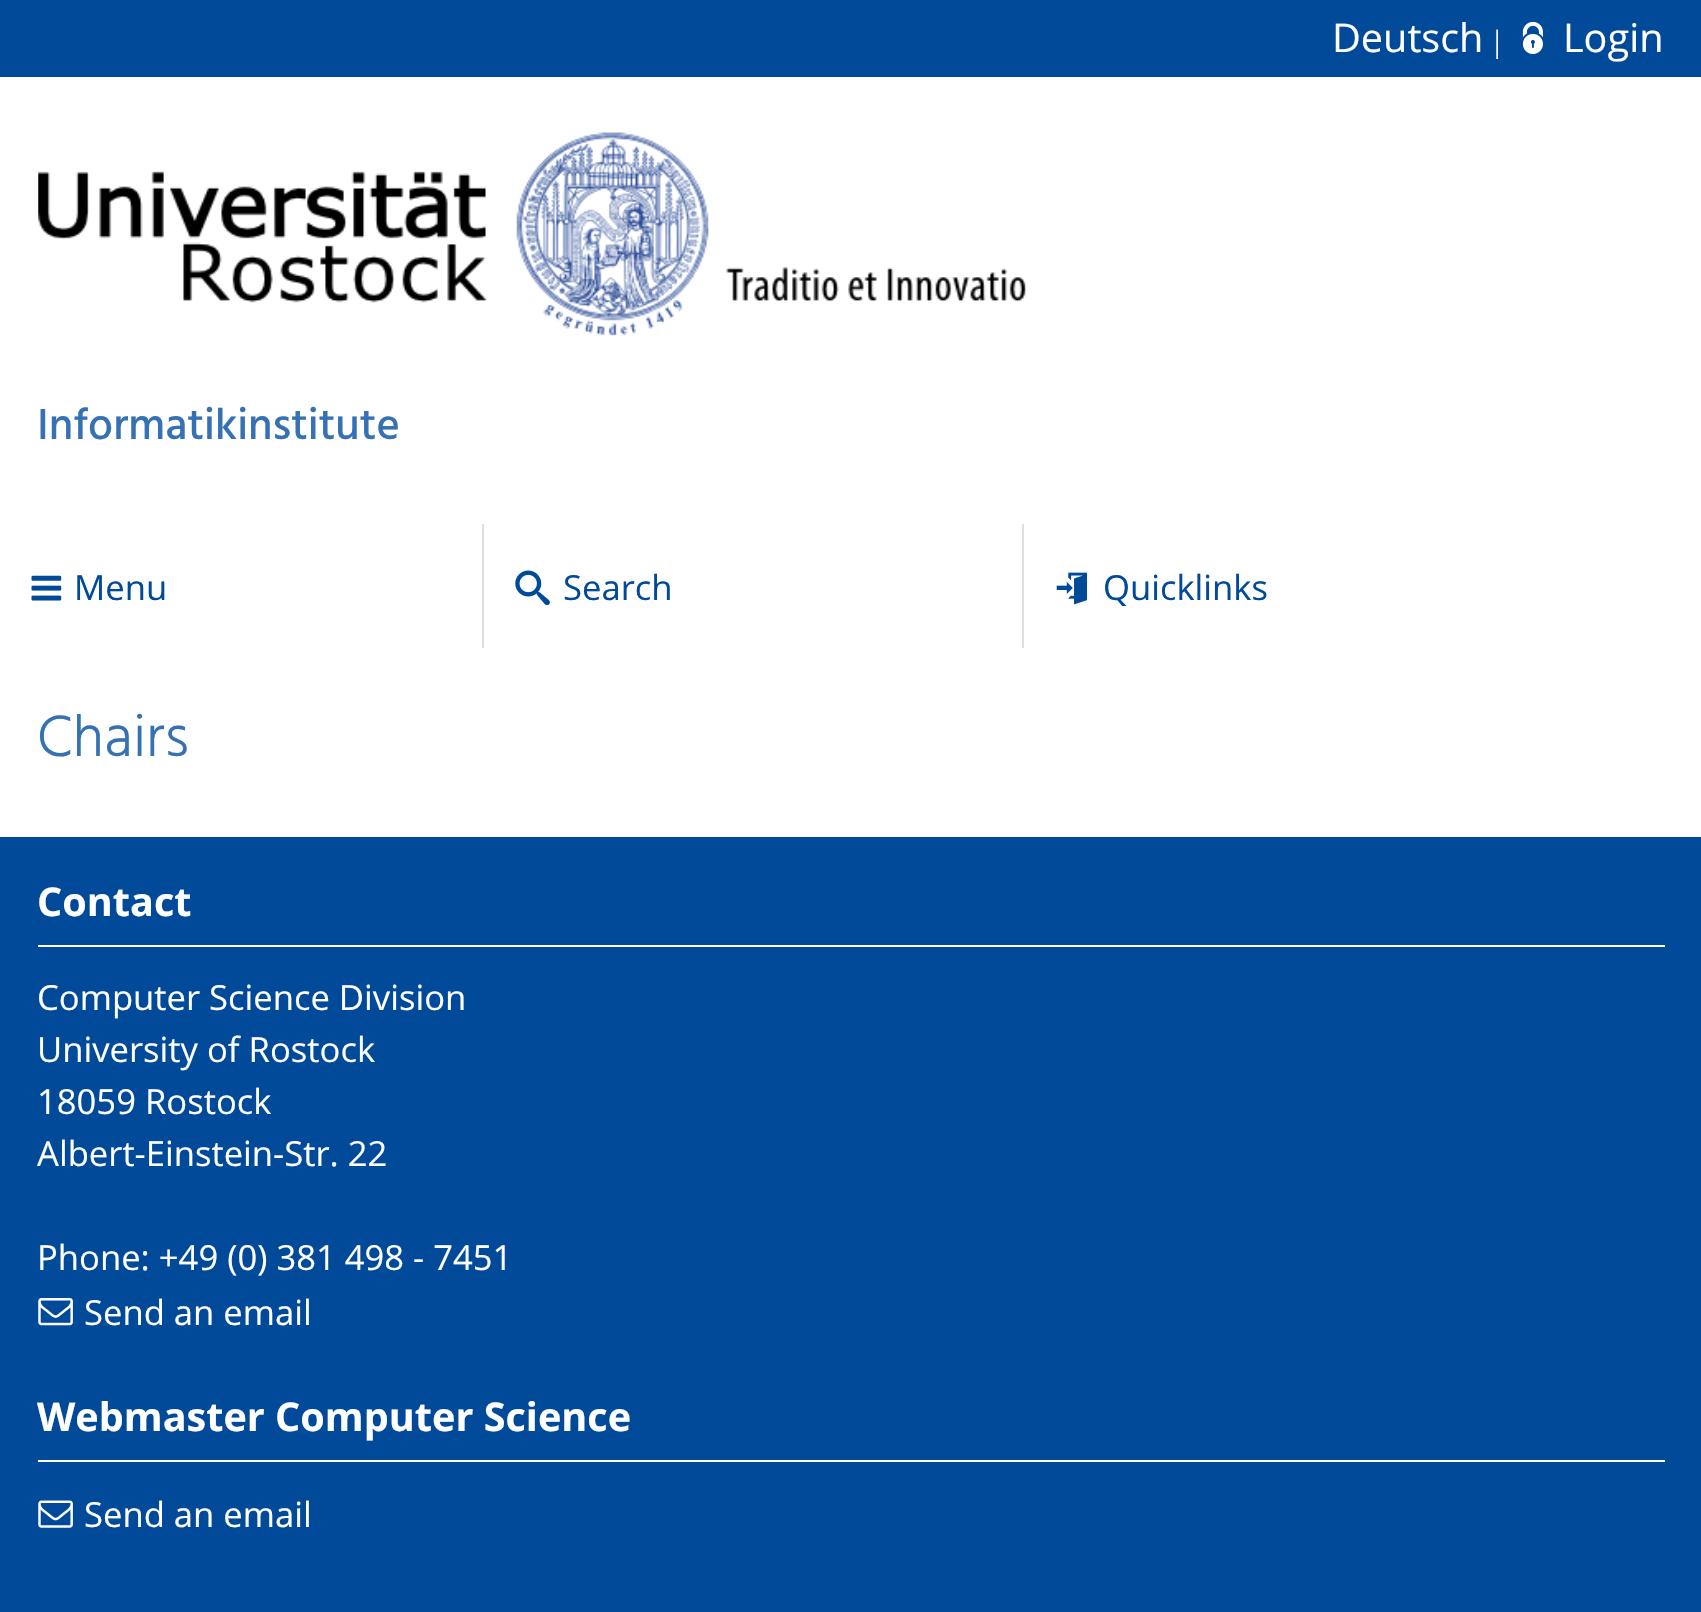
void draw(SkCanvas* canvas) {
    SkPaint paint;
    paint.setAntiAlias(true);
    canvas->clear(0xFFFFFFFF);
    paint.setColor(0xFF004A99);
    canvas->drawRect(SkRect::MakeXYWH(0, 0, 1701, 77), paint);
    SkFont font1(fontMgr->matchFamilyStyle("Open Sans", SkFontStyle::Normal()), 39.6f);
    font1.setSubpixel(true);
    paint.setColor(0xFFFFFFFF);
    canvas->drawString("Deutsch", 1332, 52, font1, paint);
    SkFont font2(fontMgr->matchFamilyStyle("Liberation Serif", SkFontStyle::Normal()), 32);
    font2.setSubpixel(true);
    canvas->drawString("|", 1494, 52, font2, paint);
    canvas->drawImageRect(SkImages::DeferredFromEncodedData(SkData::MakeFromFileName("img1.png")), SkRect::MakeXYWH(1522, 21, 21, 33), SkSamplingOptions());
    canvas->drawString("Login", 1563, 52, font1, paint);
    canvas->drawImageRect(SkImages::DeferredFromEncodedData(SkData::MakeFromFileName("img2.png")), SkRect::MakeXYWH(38, 132, 988, 204), SkSamplingOptions());
    SkFont font3(fontMgr->matchFamilyStyle("Hind", SkFontStyle(500, SkFontStyle::kNormal_Width, SkFontStyle::kUpright_Slant)), 44.5f);
    font3.setSubpixel(true);
    paint.setColor(0xFF3672B3);
    canvas->drawString("Informatikinstitute", 37, 439, font3, paint);
    canvas->drawImageRect(SkImages::DeferredFromEncodedData(SkData::MakeFromFileName("img3.png")), SkRect::MakeXYWH(31, 575, 31, 26), SkSamplingOptions());
    SkFont font4(fontMgr->matchFamilyStyle("Open Sans", SkFontStyle::Normal()), 34.6f);
    font4.setSubpixel(true);
    paint.setColor(0xFF004A99);
    canvas->drawString("Menu", 74, 600, font4, paint);
    paint.setColor(0xFFDFDFDF);
    canvas->drawRect(SkRect::MakeXYWH(482, 524, 2, 124), paint);
    canvas->drawImageRect(SkImages::DeferredFromEncodedData(SkData::MakeFromFileName("img4.png")), SkRect::MakeXYWH(515, 570, 35, 36), SkSamplingOptions());
    paint.setColor(0xFF004A99);
    canvas->drawString("Search", 563, 600, font4, paint);
    paint.setColor(0xFFDFDFDF);
    canvas->drawRect(SkRect::MakeXYWH(1022, 524, 2, 124), paint);
    canvas->drawImageRect(SkImages::DeferredFromEncodedData(SkData::MakeFromFileName("img5.png")), SkRect::MakeXYWH(1056, 572, 32, 33), SkSamplingOptions());
    paint.setColor(0xFF004A99);
    canvas->drawString("Quicklinks", 1103, 600, font4, paint);
    SkFont font5(fontMgr->matchFamilyStyle("Hind", SkFontStyle(300, SkFontStyle::kNormal_Width, SkFontStyle::kUpright_Slant)), 59.5f);
    font5.setSubpixel(true);
    paint.setColor(0xFF3672B3);
    canvas->drawString("Chairs", 37, 756, font5, paint);
    paint.setColor(0xFF004A99);
    canvas->drawRect(SkRect::MakeXYWH(0, 837, 1701, 775), paint);
    paint.setColor(0xFFFFFFFF);
    canvas->drawRect(SkRect::MakeXYWH(38, 945, 1627, 2), paint);
    SkFont font6(fontMgr->matchFamilyStyle("Open Sans", SkFontStyle::Bold()), 39.6f);
    font6.setSubpixel(true);
    canvas->drawString("Contact", 37, 916, font6, paint);
    canvas->drawString("Computer Science Division", 37, 1010, font4, paint);
    canvas->drawString("University of Rostock", 37, 1062, font4, paint);
    canvas->drawString("18059 Rostock", 37, 1114, font4, paint);
    canvas->drawString("Albert-Einstein-Str. 22", 37, 1166, font4, paint);
    canvas->drawString("Phone: +49 (0) 381 498 - 7451", 37, 1270, font4, paint);
    canvas->drawImageRect(SkImages::DeferredFromEncodedData(SkData::MakeFromFileName("img6.png")), SkRect::MakeXYWH(38, 1298, 35, 28), SkSamplingOptions());
    canvas->drawString("Send an email", 84, 1325, font4, paint);
    canvas->drawRect(SkRect::MakeXYWH(38, 1460, 1627, 2), paint);
    canvas->drawString("Webmaster Computer Science", 37, 1431, font6, paint);
    canvas->drawImageRect(SkImages::DeferredFromEncodedData(SkData::MakeFromFileName("img7.png")), SkRect::MakeXYWH(38, 1500, 35, 28), SkSamplingOptions());
    canvas->drawString("Send an email", 84, 1527, font4, paint);
}
